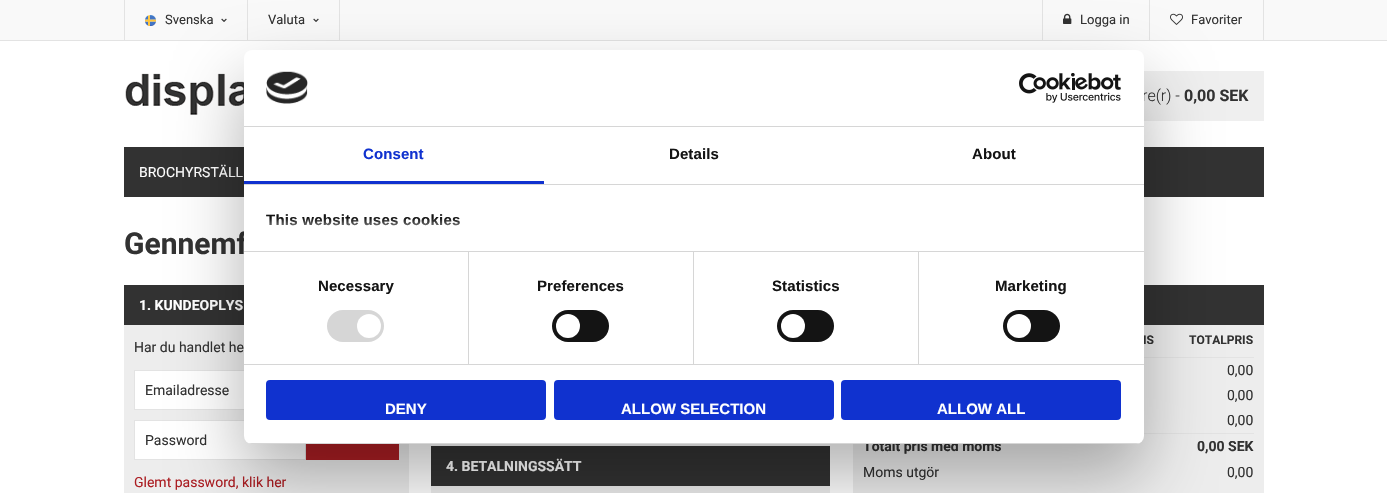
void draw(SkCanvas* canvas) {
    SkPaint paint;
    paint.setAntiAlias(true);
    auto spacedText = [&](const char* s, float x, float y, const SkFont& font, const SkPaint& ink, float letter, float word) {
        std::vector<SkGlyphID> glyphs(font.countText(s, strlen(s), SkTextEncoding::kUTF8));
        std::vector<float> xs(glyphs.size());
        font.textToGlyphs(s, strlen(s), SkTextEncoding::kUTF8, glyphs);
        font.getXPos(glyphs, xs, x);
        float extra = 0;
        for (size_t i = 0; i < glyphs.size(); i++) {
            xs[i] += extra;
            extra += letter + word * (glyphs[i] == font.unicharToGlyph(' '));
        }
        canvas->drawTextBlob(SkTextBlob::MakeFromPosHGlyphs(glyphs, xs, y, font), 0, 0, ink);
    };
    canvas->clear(0xFFF9F9F9);
    paint.setColor(0xFFE3E3E3);
    canvas->drawRect(SkRect::MakeXYWH(0, 40, 1387, 1), paint);
    canvas->drawRect(SkRect::MakeXYWH(247, 0, 1, 40), paint);
    canvas->drawRect(SkRect::MakeXYWH(124, 0, 1, 40), paint);
    canvas->drawImageRect(SkImages::DeferredFromEncodedData(SkData::MakeFromFileName("img1.png")), SkRect::MakeXYWH(145, 15, 11, 11), SkSamplingOptions());
    SkFont font1(fontMgr->matchFamilyStyle("Roboto", SkFontStyle::Normal()), 13);
    font1.setSubpixel(true);
    paint.setColor(0xFF323232);
    canvas->drawString("Svenska", 165, 24, font1, paint);
    canvas->drawImageRect(SkImages::DeferredFromEncodedData(SkData::MakeFromFileName("img2.png")), SkRect::MakeXYWH(221, 18, 6, 4), SkSamplingOptions());
    paint.setColor(0xFFE3E3E3);
    canvas->drawRect(SkRect::MakeXYWH(339, 0, 1, 40), paint);
    paint.setColor(0xFF323232);
    canvas->drawString("Valuta", 268, 24, font1, paint);
    canvas->drawImageRect(SkImages::DeferredFromEncodedData(SkData::MakeFromFileName("img2.png")), SkRect::MakeXYWH(313, 18, 6, 4), SkSamplingOptions());
    paint.setColor(0xFFE3E3E3);
    canvas->drawRect(SkRect::MakeXYWH(1149, 0, 1, 40), paint);
    canvas->drawRect(SkRect::MakeXYWH(1042, 0, 1, 40), paint);
    canvas->drawImageRect(SkImages::DeferredFromEncodedData(SkData::MakeFromFileName("img3.png")), SkRect::MakeXYWH(1063, 13, 9, 11), SkSamplingOptions());
    paint.setColor(0xFF323232);
    canvas->drawString("Logga in", 1080, 24, font1, paint);
    paint.setColor(0xFFE3E3E3);
    canvas->drawRect(SkRect::MakeXYWH(1263, 0, 1, 40), paint);
    canvas->drawImageRect(SkImages::DeferredFromEncodedData(SkData::MakeFromFileName("img4.png")), SkRect::MakeXYWH(1170, 13, 13, 12), SkSamplingOptions());
    paint.setColor(0xFF323232);
    canvas->drawString("Favoriter", 1191, 24, font1, paint);
    paint.setColor(0xFFFFFFFF);
    canvas->drawRect(SkRect::MakeXYWH(0, 41, 1387, 452), paint);
    canvas->drawImageRect(SkImages::DeferredFromEncodedData(SkData::MakeFromFileName("img5.png")), SkRect::MakeXYWH(125, 73, 119, 42), SkSamplingOptions());
    paint.setColor(0xFFEFEFEF);
    canvas->drawRect(SkRect::MakeXYWH(1144, 71, 120, 50), paint);
    SkFont font2(fontMgr->matchFamilyStyle("Roboto", SkFontStyle(300, SkFontStyle::kNormal_Width, SkFontStyle::kUpright_Slant)), 16);
    font2.setSubpixel(true);
    paint.setColor(0xFF323232);
    canvas->drawString("re(r) -", 1142, 101, font2, paint);
    SkFont font3(fontMgr->matchFamilyStyle("Roboto", SkFontStyle::Bold()), 16);
    font3.setSubpixel(true);
    canvas->drawString("0,00 SEK", 1184, 101, font3, paint);
    canvas->drawRect(SkRect::MakeXYWH(124, 147, 1140, 50), paint);
    SkFont font4(fontMgr->matchFamilyStyle("Roboto", SkFontStyle::Normal()), 14);
    font4.setSubpixel(true);
    paint.setColor(0xFFFFFFFF);
    canvas->drawString("BROCHYRSTÄLL", 139, 177, font4, paint);
    SkFont font5(fontMgr->matchFamilyStyle("Roboto", SkFontStyle::Bold()), 30);
    font5.setSubpixel(true);
    paint.setColor(0xFF323232);
    canvas->drawString("Gennemf", 124, 254, font5, paint);
    paint.setColor(0xFFEDEDED);
    canvas->drawRect(SkRect::MakeXYWH(124, 325, 285, 168), paint);
    paint.setColor(0xFF323232);
    canvas->drawRect(SkRect::MakeXYWH(124, 285, 120, 40), paint);
    SkFont font6(fontMgr->matchFamilyStyle("Roboto", SkFontStyle::Bold()), 14);
    font6.setSubpixel(true);
    paint.setColor(0xFFFFFFFF);
    canvas->drawString("1. KUNDEOPLYS", 139, 310, font6, paint);
    paint.setColor(0xFF323232);
    canvas->drawString("Har du handlet he", 134, 352, font4, paint);
    paint.setColor(0xFFFFFFFF);
    canvas->drawRect(SkRect::MakeXYWH(135, 371, 109, 38), paint);
    paint.setStyle(SkPaint::kStroke_Style);
    paint.setStrokeWidth(1);
    paint.setColor(0xFFE3E3E3);
    canvas->drawRect(SkRect::MakeXYWH(134.5f, 370.5f, 264, 39), paint);
    paint.setStyle(SkPaint::kFill_Style);
    paint.setColor(0xFF323232);
    canvas->drawString("Emailadresse", 145, 395, font4, paint);
    paint.setColor(0xFFFFFFFF);
    canvas->drawRect(SkRect::MakeXYWH(134.5f, 420.5f, 171, 39), paint);
    paint.setStyle(SkPaint::kStroke_Style);
    paint.setColor(0xFFE3E3E3);
    canvas->drawRect(SkRect::MakeXYWH(134.5f, 420.5f, 171, 39), paint);
    paint.setStyle(SkPaint::kFill_Style);
    paint.setColor(0xFF323232);
    canvas->drawString("Password", 145, 445, font4, paint);
    paint.setColor(0xFFAC1E23);
    canvas->drawRect(SkRect::MakeXYWH(306, 444, 93, 16), paint);
    canvas->drawString("Glemt password, klik her", 134, 487, font4, paint);
    paint.setColor(0xFF323232);
    canvas->drawRect(SkRect::MakeXYWH(431, 446, 399, 40), paint);
    paint.setColor(0xFFFFFFFF);
    canvas->drawString("4. BETALNINGSSÄTT", 446, 471, font6, paint);
    paint.setColor(0xFFEDEDED);
    canvas->drawRect(SkRect::MakeXYWH(431, 486, 399, 7), paint);
    canvas->drawRect(SkRect::MakeXYWH(853, 325, 411, 168), paint);
    paint.setColor(0xFF323232);
    canvas->drawRect(SkRect::MakeXYWH(1144, 285, 120, 40), paint);
    paint.setColor(0xFFE3E3E3);
    canvas->drawRect(SkRect::MakeXYWH(1144, 357, 110, 1), paint);
    SkFont font7(fontMgr->matchFamilyStyle("Roboto", SkFontStyle::Bold()), 12);
    font7.setSubpixel(true);
    paint.setColor(0xFF323232);
    canvas->drawString("IS", 1143, 344, font7, paint);
    canvas->drawString("TOTALPRIS", 1189, 344, font7, paint);
    paint.setColor(0xFFE3E3E3);
    canvas->drawRect(SkRect::MakeXYWH(1144, 433, 110, 1), paint);
    paint.setColor(0xFF323232);
    canvas->drawString("0,00", 1227, 375, font4, paint);
    canvas->drawString("0,00", 1227, 400, font4, paint);
    canvas->drawString("0,00", 1227, 425, font4, paint);
    canvas->drawString("Totalt pris med moms", 863, 451, font6, paint);
    canvas->drawString("0,00 SEK", 1197, 451, font6, paint);
    canvas->drawString("Moms utgör", 863, 477, font4, paint);
    canvas->drawString("0,00", 1227, 477, font4, paint);
    paint.setColor(0x4D000000);
    paint.setMaskFilter(SkMaskFilter::MakeBlur(kNormal_SkBlurStyle, 34));
    canvas->drawRoundRect(SkRect::MakeXYWH(244, 82, 900, 394), 8, 8, paint);
    paint.setMaskFilter(nullptr);
    paint.setColor(0xFFFFFFFF);
    canvas->drawRoundRect(SkRect::MakeXYWH(244, 50, 900, 394), 8, 8, paint);
    paint.setColor(0xFFD6D6D6);
    canvas->drawRect(SkRect::MakeXYWH(244, 126, 900, 1), paint);
    canvas->drawImageRect(SkImages::DeferredFromEncodedData(SkData::MakeFromFileName("img6.png")), SkRect::MakeXYWH(266, 71, 42, 33), SkSamplingOptions());
    canvas->drawImageRect(SkImages::DeferredFromEncodedData(SkData::MakeFromFileName("img7.png")), SkRect::MakeXYWH(1019, 73, 102, 30), SkSamplingOptions());
    canvas->drawRect(SkRect::MakeXYWH(244, 184, 900, 1), paint);
    paint.setColor(0xFF1032CF);
    canvas->drawRect(SkRect::MakeXYWH(244, 181, 300, 3), paint);
    SkFont font8(fontMgr->matchFamilyStyle("Liberation Sans", SkFontStyle::Bold()), 15);
    font8.setSubpixel(true);
    spacedText("Consent", 363, 159, font8, paint, 0.1f, 0);
    paint.setColor(0xFF141414);
    spacedText("Details", 669, 159, font8, paint, 0.1f, 0);
    spacedText("About", 972, 159, font8, paint, 0.1f, 0);
    paint.setColor(0xFFD6D6D6);
    canvas->drawRect(SkRect::MakeXYWH(244, 251, 900, 1), paint);
    paint.setColor(0xFF141414);
    spacedText("This website uses cookies", 266, 225, font8, paint, 0.25f, 0);
    {
        const SkColor colors[] = {0xFFFFFFFF, 0xCCFFFFFF, 0x00FFFFFF};
        const float stops[] = {0, 0.5f, 1};
        const SkPoint ends[] = {{684, 251}, {684, 218}};
        paint.setShader(SkGradientShader::MakeLinear(ends, colors, stops, 3, SkTileMode::kClamp));
        paint.setAlpha(255);
    }
    canvas->drawRect(SkRect::MakeXYWH(269, 218, 191, 8), paint);
    paint.setShader(nullptr);
    paint.setColor(0xFFD6D6D6);
    canvas->drawRect(SkRect::MakeXYWH(244, 364, 900, 1), paint);
    canvas->drawRect(SkRect::MakeXYWH(468, 252, 1, 112), paint);
    paint.setColor(0xFF141414);
    spacedText("Necessary", 318, 291, font8, paint, 0.1f, 0);
    paint.setColor(0xFFD6D6D6);
    canvas->drawRoundRect(SkRect::MakeXYWH(327, 310, 57, 32), 16, 16, paint);
    paint.setColor(0xFFFFFFFF);
    canvas->drawCircle(369, 326, 12, paint);
    paint.setColor(0xFFD6D6D6);
    canvas->drawRect(SkRect::MakeXYWH(693, 252, 1, 112), paint);
    paint.setColor(0xFF141414);
    spacedText("Preferences", 537, 291, font8, paint, 0.1f, 0);
    canvas->drawRoundRect(SkRect::MakeXYWH(552, 310, 57, 32), 16, 16, paint);
    paint.setColor(0xFFFFFFFF);
    canvas->drawCircle(568, 326, 12, paint);
    paint.setColor(0xFFD6D6D6);
    canvas->drawRect(SkRect::MakeXYWH(918, 252, 1, 112), paint);
    paint.setColor(0xFF141414);
    spacedText("Statistics", 772, 291, font8, paint, 0.1f, 0);
    canvas->drawRoundRect(SkRect::MakeXYWH(777, 310, 57, 32), 16, 16, paint);
    paint.setColor(0xFFFFFFFF);
    canvas->drawCircle(793, 326, 12, paint);
    paint.setColor(0xFF141414);
    spacedText("Marketing", 995, 291, font8, paint, 0.1f, 0);
    canvas->drawRoundRect(SkRect::MakeXYWH(1003, 310, 57, 32), 16, 16, paint);
    paint.setColor(0xFFFFFFFF);
    canvas->drawCircle(1019, 326, 12, paint);
    canvas->save();
    canvas->clipPath(SkPathBuilder().moveTo(252, 50).lineTo(1136, 50).cubicTo(1140.5f, 50, 1144, 53.5f, 1144, 58).lineTo(1144, 436).cubicTo(1144, 440.5f, 1140.5f, 444, 1136, 444).lineTo(252, 444).cubicTo(247.5f, 444, 244, 440.5f, 244, 436).lineTo(244, 58).cubicTo(244, 53.5f, 247.5f, 50, 252, 50).close().detach(), true);
    paint.setColor(0xFFD6D6D6);
    canvas->drawRect(SkRect::MakeXYWH(244, 443, 900, 1), paint);
    canvas->restore();
    paint.setColor(0xFF1032CF);
    canvas->drawRoundRect(SkRect::MakeXYWH(267, 381, 278, 38), 3, 3, paint);
    paint.setStyle(SkPaint::kStroke_Style);
    paint.setStrokeWidth(2);
    canvas->drawRoundRect(SkRect::MakeXYWH(267, 381, 278, 38), 3, 3, paint);
    paint.setStyle(SkPaint::kFill_Style);
    paint.setColor(0xFFFFFFFF);
    canvas->drawString("DENY", 385, 414, font8, paint);
    paint.setColor(0xFF1032CF);
    canvas->drawRoundRect(SkRect::MakeXYWH(555, 381, 278, 38), 3, 3, paint);
    paint.setStyle(SkPaint::kStroke_Style);
    canvas->drawRoundRect(SkRect::MakeXYWH(555, 381, 278, 38), 3, 3, paint);
    paint.setStyle(SkPaint::kFill_Style);
    paint.setColor(0xFFFFFFFF);
    canvas->drawString("ALLOW SELECTION", 621, 414, font8, paint);
    paint.setColor(0xFF1032CF);
    canvas->drawRoundRect(SkRect::MakeXYWH(842, 381, 278, 38), 3, 3, paint);
    paint.setStyle(SkPaint::kStroke_Style);
    canvas->drawRoundRect(SkRect::MakeXYWH(842, 381, 278, 38), 3, 3, paint);
    paint.setStyle(SkPaint::kFill_Style);
    paint.setColor(0xFFFFFFFF);
    canvas->drawString("ALLOW ALL", 937, 414, font8, paint);
}
